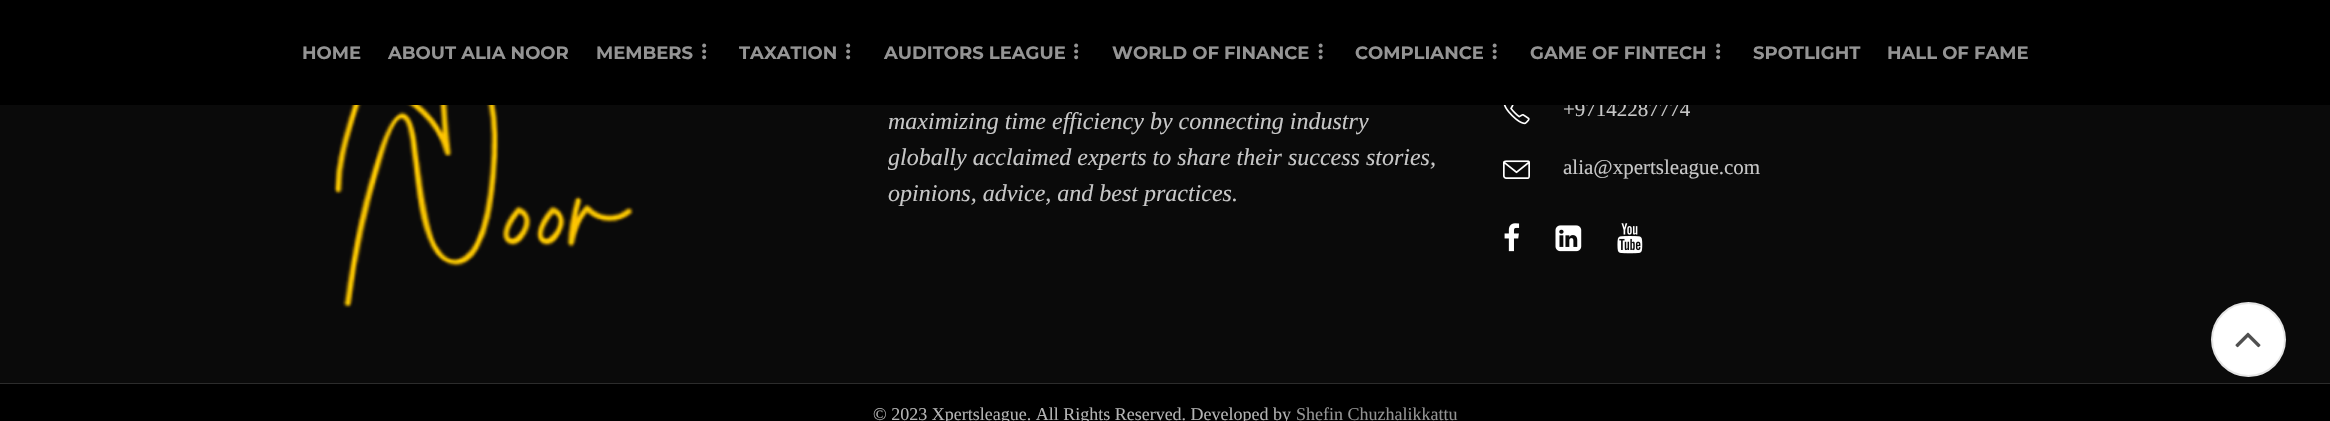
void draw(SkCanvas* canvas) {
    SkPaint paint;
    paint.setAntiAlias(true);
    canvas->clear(0xFF0A0A0A);
    SkFont font1(fontMgr->matchFamilyStyle("Liberation Serif", SkFontStyle::Normal()), 21);
    font1.setSubpixel(true);
    paint.setColor(0xFFC7C7C7);
    canvas->drawString("+97142287774", 1563, 116, font1, paint);
    paint.setColor(0xFF000000);
    canvas->drawRect(SkRect::MakeXYWH(0, 0, 2330, 105), paint);
    SkFont font2(fontMgr->matchFamilyStyle("Montserrat", SkFontStyle::Bold()), 18);
    font2.setSubpixel(true);
    paint.setColor(0xFF949494);
    canvas->drawString("HOME", 302, 59, font2, paint);
    canvas->drawString("ABOUT ALIA NOOR", 388, 59, font2, paint);
    canvas->drawString("MEMBERS", 596, 59, font2, paint);
    canvas->drawImageRect(SkImages::DeferredFromEncodedData(SkData::MakeFromFileName("img1.png")), SkRect::MakeXYWH(702, 43, 5, 17), SkSamplingOptions());
    canvas->drawString("TAXATION", 739, 59, font2, paint);
    canvas->drawImageRect(SkImages::DeferredFromEncodedData(SkData::MakeFromFileName("img1.png")), SkRect::MakeXYWH(846, 43, 5, 17), SkSamplingOptions());
    canvas->drawString("AUDITORS LEAGUE", 884, 59, font2, paint);
    canvas->drawImageRect(SkImages::DeferredFromEncodedData(SkData::MakeFromFileName("img1.png")), SkRect::MakeXYWH(1074, 43, 5, 17), SkSamplingOptions());
    canvas->drawString("WORLD OF FINANCE", 1112, 59, font2, paint);
    canvas->drawImageRect(SkImages::DeferredFromEncodedData(SkData::MakeFromFileName("img2.png")), SkRect::MakeXYWH(1318, 43, 5, 17), SkSamplingOptions());
    canvas->drawString("COMPLIANCE", 1355, 59, font2, paint);
    canvas->drawImageRect(SkImages::DeferredFromEncodedData(SkData::MakeFromFileName("img2.png")), SkRect::MakeXYWH(1492, 43, 5, 17), SkSamplingOptions());
    canvas->drawString("GAME OF FINTECH", 1530, 59, font2, paint);
    canvas->drawImageRect(SkImages::DeferredFromEncodedData(SkData::MakeFromFileName("img1.png")), SkRect::MakeXYWH(1716, 43, 5, 17), SkSamplingOptions());
    canvas->drawString("SPOTLIGHT", 1753, 59, font2, paint);
    canvas->drawString("HALL OF FAME", 1887, 59, font2, paint);
    paint.setColor(0xFF2C2C2C);
    canvas->drawRect(SkRect::MakeXYWH(0, 383, 2330, 1), paint);
    canvas->drawImageRect(SkImages::DeferredFromEncodedData(SkData::MakeFromFileName("img3.png")), SkRect::MakeXYWH(333, 105, 301, 203), SkSamplingOptions());
    SkFont font3(fontMgr->matchFamilyStyle("Liberation Serif", SkFontStyle::Italic()), 24);
    font3.setSubpixel(true);
    paint.setColor(0xFFC7C7C7);
    canvas->drawString("maximizing time efficiency by connecting industry", 888, 129, font3, paint);
    canvas->drawString("globally acclaimed experts to share their success stories,", 888, 165, font3, paint);
    canvas->drawString("opinions, advice, and best practices.", 888, 201, font3, paint);
    canvas->drawImageRect(SkImages::DeferredFromEncodedData(SkData::MakeFromFileName("img4.png")), SkRect::MakeXYWH(1503, 105, 27, 20), SkSamplingOptions());
    canvas->drawImageRect(SkImages::DeferredFromEncodedData(SkData::MakeFromFileName("img5.png")), SkRect::MakeXYWH(1503, 160, 27, 19), SkSamplingOptions());
    canvas->drawString("alia@xpertsleague.com", 1563, 174, font1, paint);
    canvas->drawImageRect(SkImages::DeferredFromEncodedData(SkData::MakeFromFileName("img6.png")), SkRect::MakeXYWH(1504, 223, 16, 29), SkSamplingOptions());
    canvas->drawImageRect(SkImages::DeferredFromEncodedData(SkData::MakeFromFileName("img7.png")), SkRect::MakeXYWH(1555, 225, 27, 27), SkSamplingOptions());
    canvas->drawImageRect(SkImages::DeferredFromEncodedData(SkData::MakeFromFileName("img8.png")), SkRect::MakeXYWH(1617, 223, 26, 31), SkSamplingOptions());
    paint.setColor(0xFF000000);
    canvas->drawRect(SkRect::MakeXYWH(0, 384, 2330, 37), paint);
    SkFont font4(fontMgr->matchFamilyStyle("Liberation Serif", SkFontStyle::Normal()), 18);
    font4.setSubpixel(true);
    paint.setColor(0xFFB4B4B4);
    canvas->drawString("© 2023 Xpertsleague. All Rights Reserved. Developed by", 873, 420, font4, paint);
    paint.setColor(0xFF949494);
    canvas->drawString("Shefin Chuzhalikkattu", 1296, 420, font4, paint);
    paint.setColor(0xFFFFFFFF);
    canvas->drawCircle(2248.5f, 339.5f, 37.5f, paint);
    paint.setStyle(SkPaint::kStroke_Style);
    paint.setStrokeWidth(2);
    paint.setColor(0x1A000000);
    canvas->drawCircle(2248.5f, 339.5f, 36.5f, paint);
    canvas->drawImageRect(SkImages::DeferredFromEncodedData(SkData::MakeFromFileName("img9.png")), SkRect::MakeXYWH(2235, 332, 26, 16), SkSamplingOptions());
}
